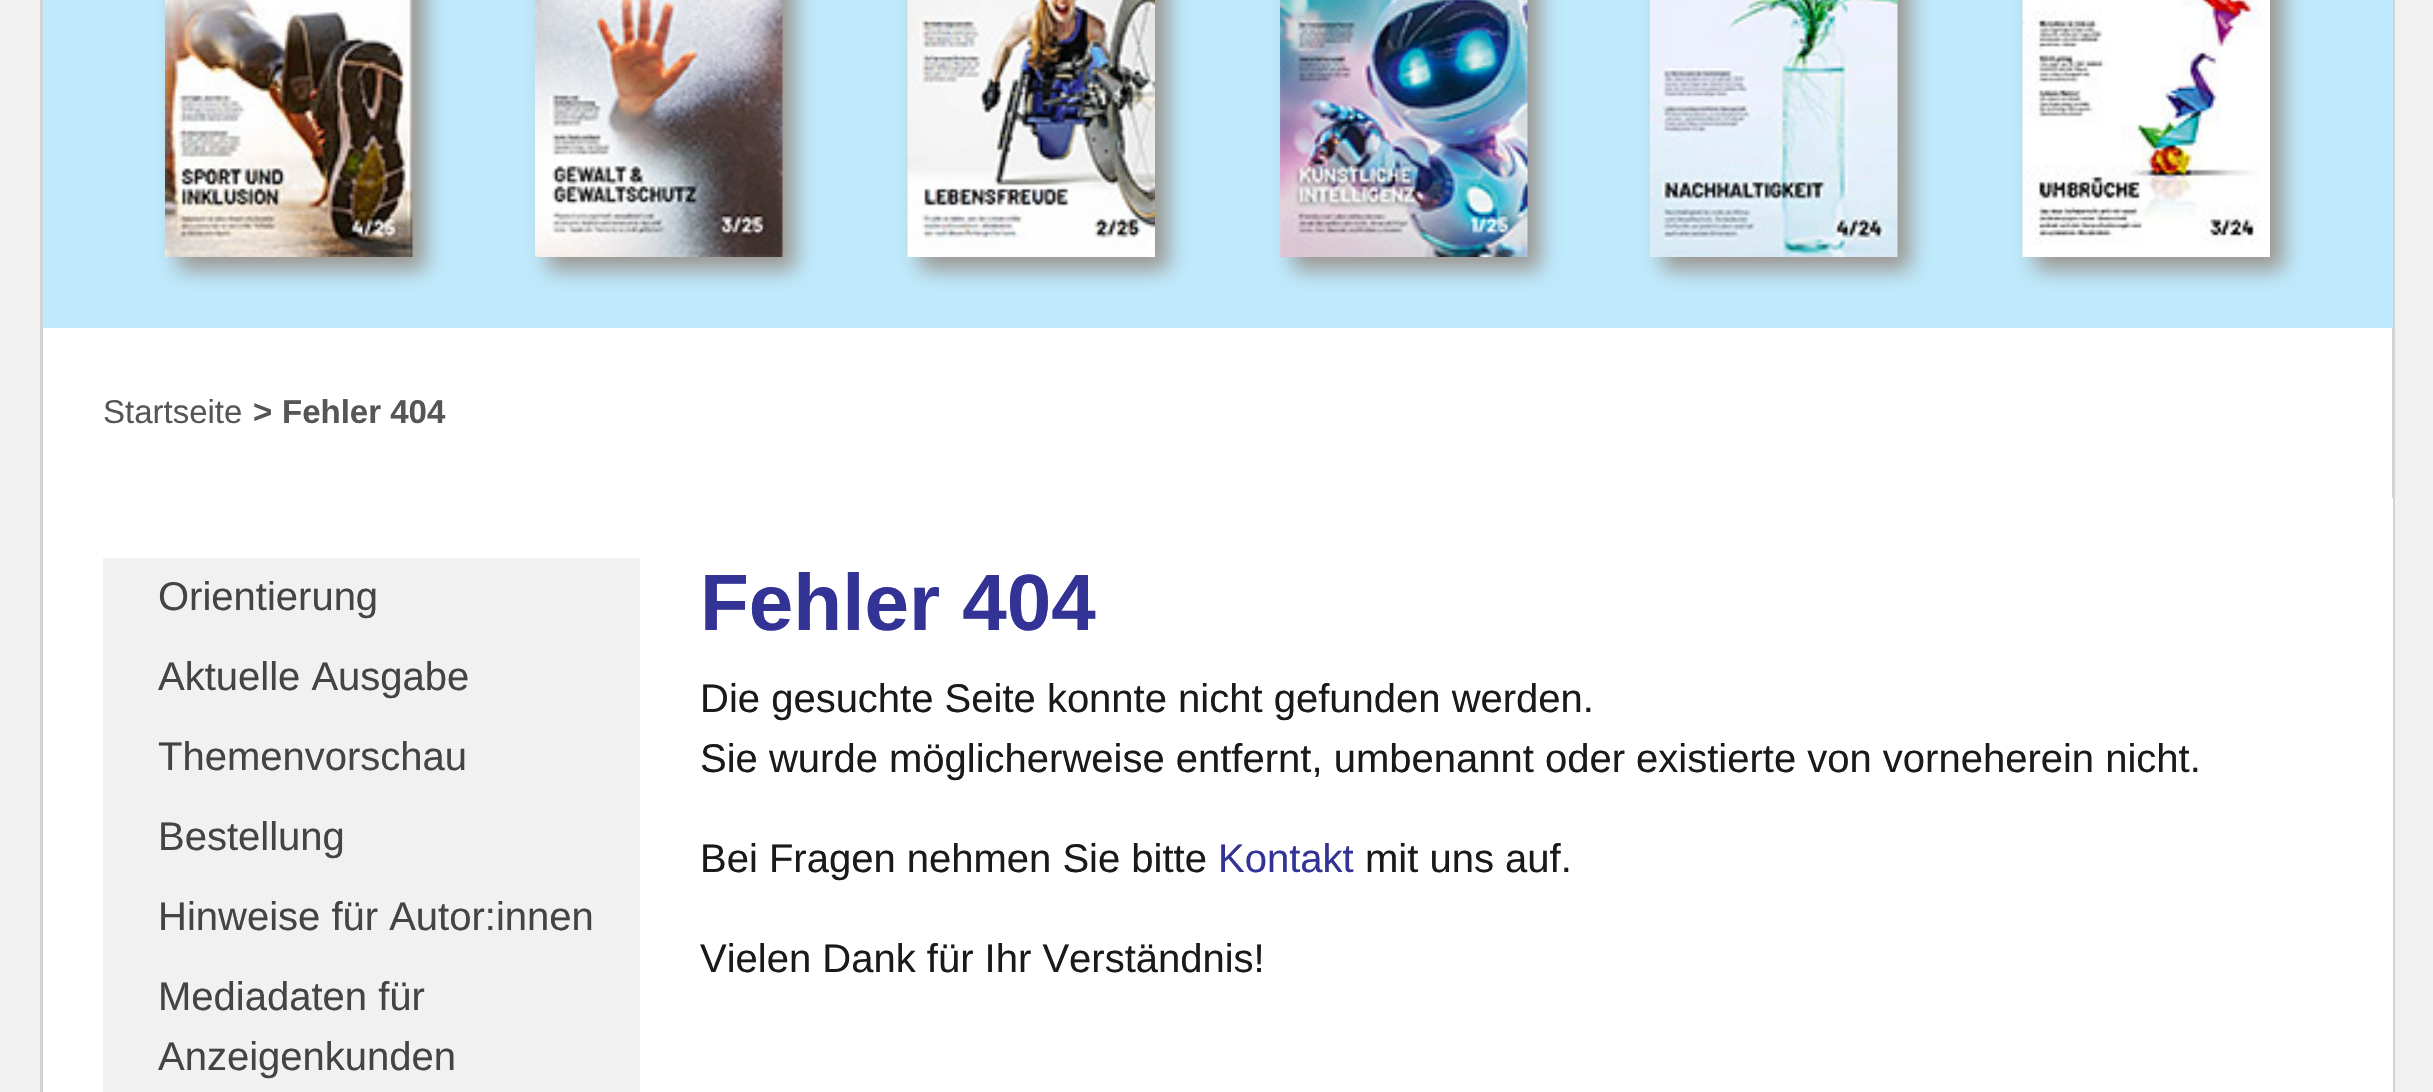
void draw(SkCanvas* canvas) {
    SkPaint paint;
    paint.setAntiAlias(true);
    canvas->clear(0xFFF1F1F1);
    paint.setColor(0xFFFFFFFF);
    canvas->drawRect(SkRect::MakeXYWH(43, 328, 2349, 764), paint);
    paint.setStyle(SkPaint::kStroke_Style);
    paint.setStrokeWidth(3);
    paint.setColor(0xFFD3D3D3);
    canvas->drawRect(SkRect::MakeXYWH(41.5f, -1.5f, 2352, 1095), paint);
    paint.setStyle(SkPaint::kFill_Style);
    paint.setColor(0xFFBFEAFD);
    canvas->drawRect(SkRect::MakeXYWH(43, 0, 2350, 328), paint);
    paint.setColor(0xFF9B9690);
    paint.setMaskFilter(SkMaskFilter::MakeBlur(kNormal_SkBlurStyle, 10));
    canvas->drawRect(SkRect::MakeXYWH(178, -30, 247, 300), paint);
    paint.setMaskFilter(nullptr);
    canvas->drawImageRect(SkImages::DeferredFromEncodedData(SkData::MakeFromFileName("img1.png")), SkRect::MakeXYWH(165, 0, 248, 257), SkSamplingOptions());
    paint.setMaskFilter(SkMaskFilter::MakeBlur(kNormal_SkBlurStyle, 10));
    canvas->drawRect(SkRect::MakeXYWH(548, -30, 247, 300), paint);
    paint.setMaskFilter(nullptr);
    canvas->drawImageRect(SkImages::DeferredFromEncodedData(SkData::MakeFromFileName("img2.png")), SkRect::MakeXYWH(535, 0, 248, 257), SkSamplingOptions());
    paint.setMaskFilter(SkMaskFilter::MakeBlur(kNormal_SkBlurStyle, 10));
    canvas->drawRect(SkRect::MakeXYWH(920, -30, 248, 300), paint);
    paint.setMaskFilter(nullptr);
    canvas->drawImageRect(SkImages::DeferredFromEncodedData(SkData::MakeFromFileName("img3.png")), SkRect::MakeXYWH(907, 0, 248, 257), SkSamplingOptions());
    paint.setMaskFilter(SkMaskFilter::MakeBlur(kNormal_SkBlurStyle, 10));
    canvas->drawRect(SkRect::MakeXYWH(1293, -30, 247, 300), paint);
    paint.setMaskFilter(nullptr);
    canvas->drawImageRect(SkImages::DeferredFromEncodedData(SkData::MakeFromFileName("img4.png")), SkRect::MakeXYWH(1280, 0, 248, 257), SkSamplingOptions());
    paint.setMaskFilter(SkMaskFilter::MakeBlur(kNormal_SkBlurStyle, 10));
    canvas->drawRect(SkRect::MakeXYWH(1663, -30, 247, 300), paint);
    paint.setMaskFilter(nullptr);
    canvas->drawImageRect(SkImages::DeferredFromEncodedData(SkData::MakeFromFileName("img5.png")), SkRect::MakeXYWH(1650, 0, 248, 257), SkSamplingOptions());
    paint.setMaskFilter(SkMaskFilter::MakeBlur(kNormal_SkBlurStyle, 10));
    canvas->drawRect(SkRect::MakeXYWH(2035, -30, 248, 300), paint);
    paint.setMaskFilter(nullptr);
    canvas->drawImageRect(SkImages::DeferredFromEncodedData(SkData::MakeFromFileName("img6.png")), SkRect::MakeXYWH(2022, 0, 248, 257), SkSamplingOptions());
    SkFont font1(fontMgr->matchFamilyStyle("Liberation Sans", SkFontStyle::Normal()), 33);
    font1.setSubpixel(true);
    paint.setColor(0xFF565656);
    canvas->drawString("Startseite", 103, 423, font1, paint);
    SkFont font2(fontMgr->matchFamilyStyle("Liberation Sans", SkFontStyle::Bold()), 33);
    font2.setSubpixel(true);
    canvas->drawString(">", 253, 423, font2, paint);
    canvas->drawString("Fehler 404", 282, 423, font2, paint);
    paint.setColor(0xFFF1F1F1);
    canvas->drawRect(SkRect::MakeXYWH(103, 558, 537, 534), paint);
    SkFont font3(fontMgr->matchFamilyStyle("Liberation Sans", SkFontStyle::Normal()), 40);
    font3.setSubpixel(true);
    paint.setColor(0xFF444444);
    canvas->drawString("Orientierung", 158, 610, font3, paint);
    canvas->drawString("Aktuelle Ausgabe", 158, 690, font3, paint);
    canvas->drawString("Themenvorschau", 158, 770, font3, paint);
    canvas->drawString("Bestellung", 158, 850, font3, paint);
    canvas->drawString("Hinweise für Autor:innen", 158, 930, font3, paint);
    canvas->drawString("Mediadaten für", 158, 1010, font3, paint);
    canvas->drawString("Anzeigenkunden", 158, 1070, font3, paint);
    paint.setColor(0xFFFFFFFF);
    canvas->drawRect(SkRect::MakeXYWH(2392, 498, 1, 594), paint);
    SkFont font4(fontMgr->matchFamilyStyle("Liberation Sans", SkFontStyle::Bold()), 80);
    font4.setSubpixel(true);
    paint.setColor(0xFF323394);
    canvas->drawString("Fehler 404", 700, 630, font4, paint);
    paint.setColor(0xFF1A1A1A);
    canvas->drawString("Die gesuchte Seite konnte nicht gefunden werden.", 700, 712, font3, paint);
    canvas->drawString("Sie wurde möglicherweise entfernt, umbenannt oder existierte von vorneherein nicht.", 700, 772, font3, paint);
    canvas->drawString("Bei Fragen nehmen Sie bitte", 700, 872, font3, paint);
    paint.setColor(0xFF323394);
    canvas->drawString("Kontakt", 1218, 872, font3, paint);
    paint.setColor(0xFF1A1A1A);
    canvas->drawString("mit uns auf.", 1365, 872, font3, paint);
    canvas->drawString("Vielen Dank für Ihr Verständnis!", 700, 972, font3, paint);
}
